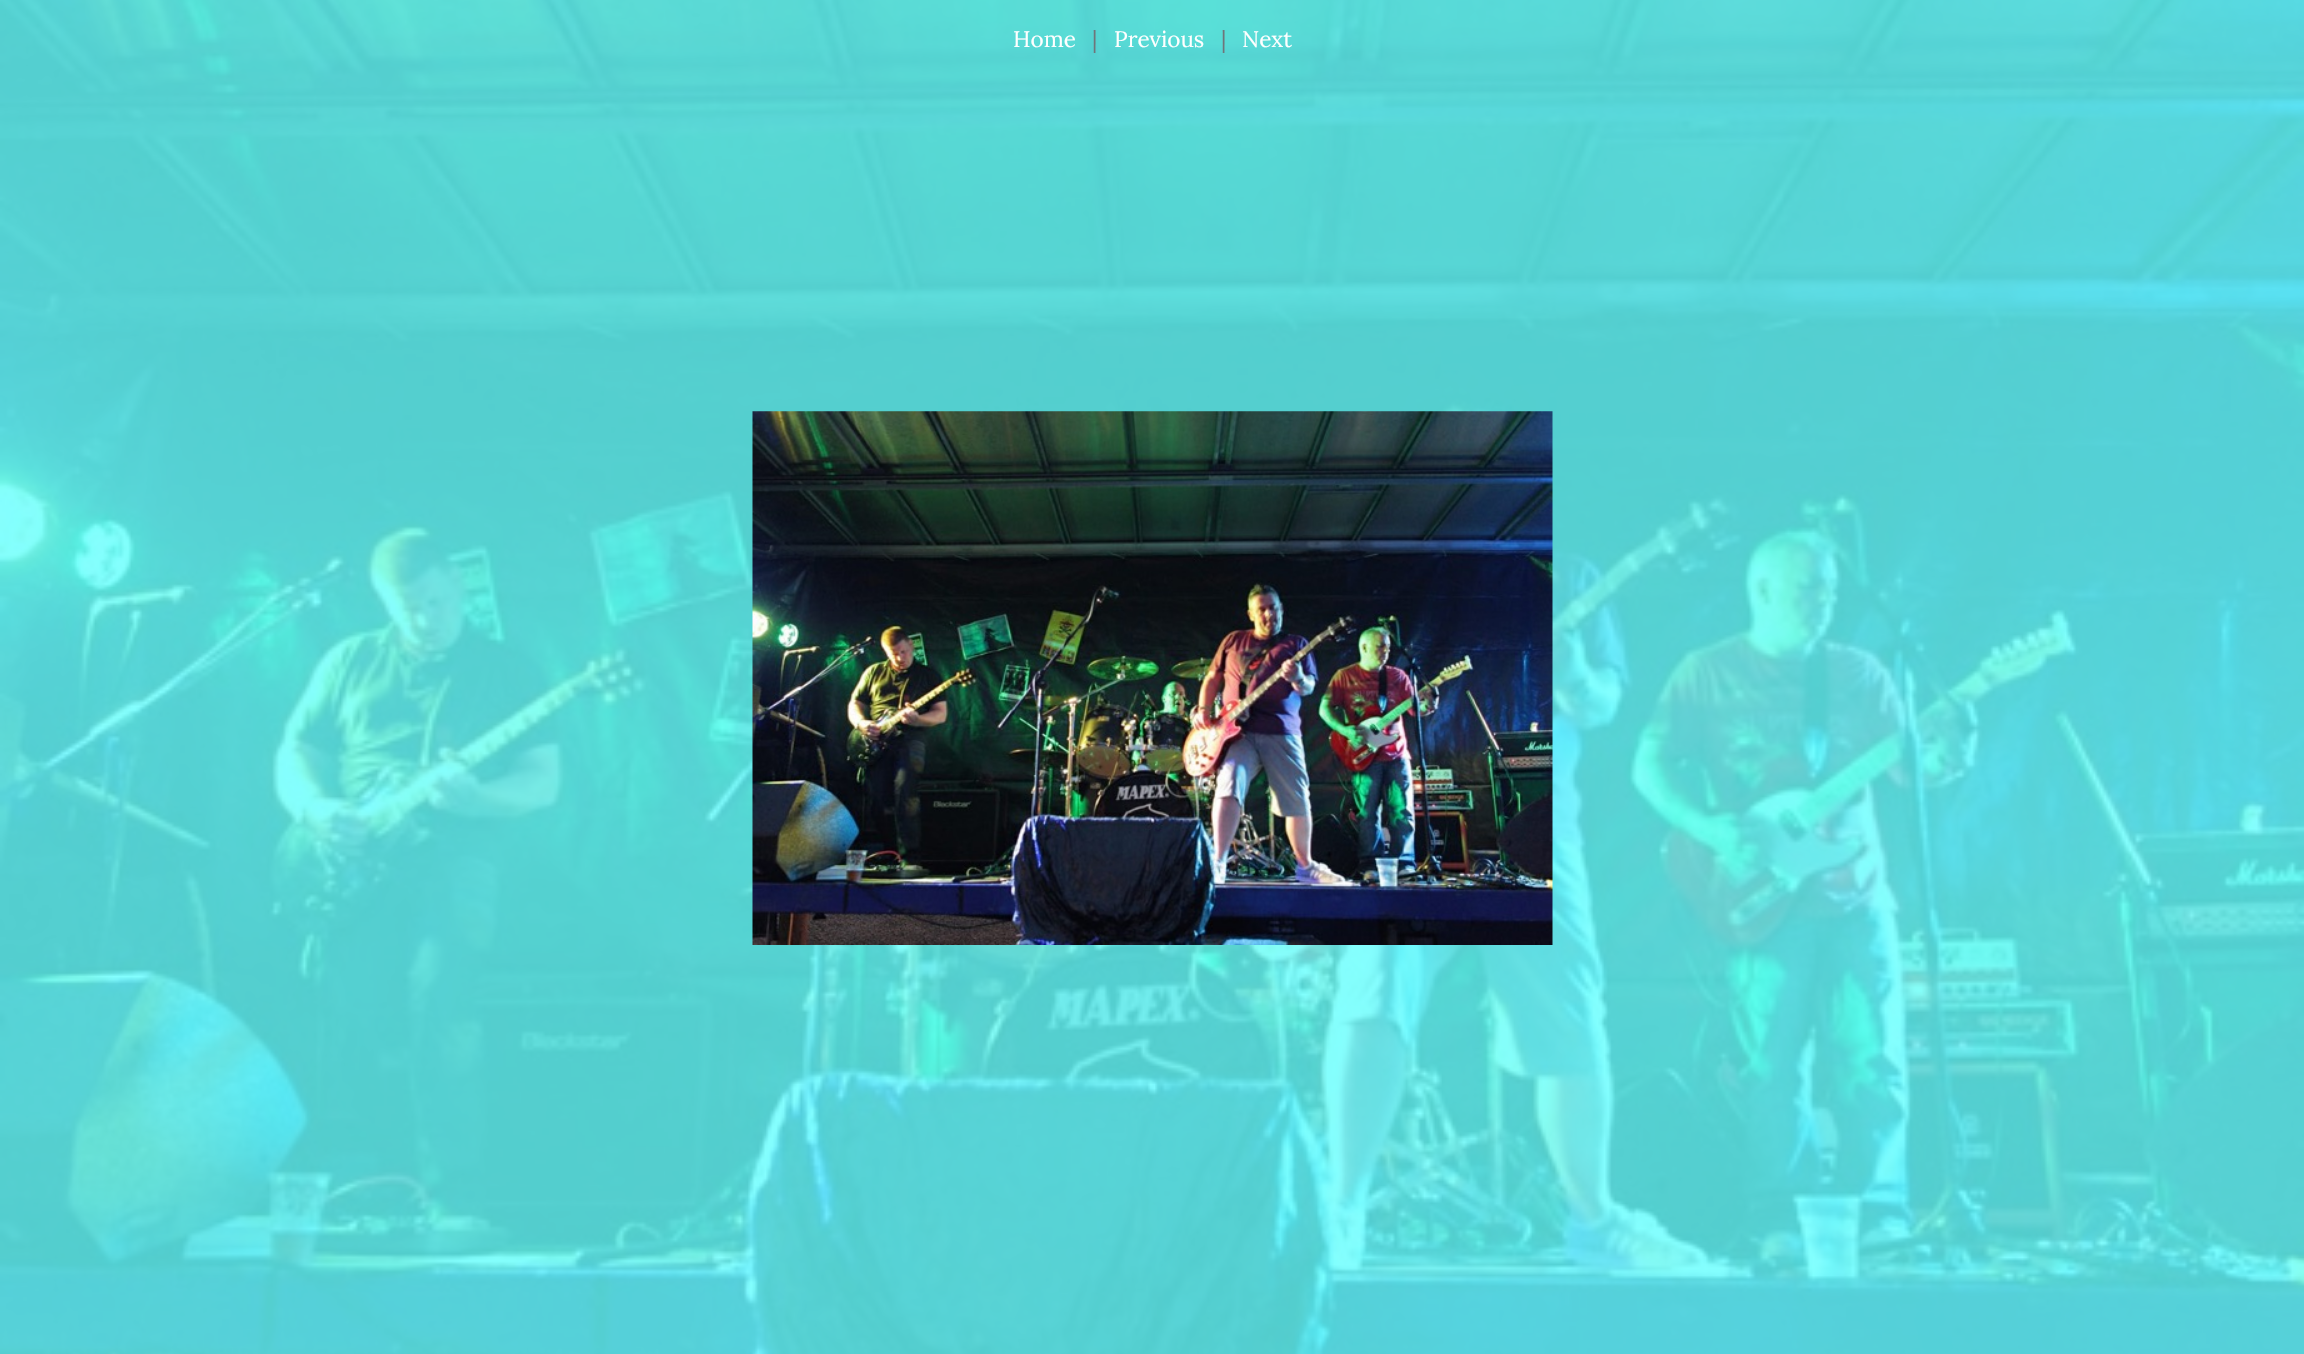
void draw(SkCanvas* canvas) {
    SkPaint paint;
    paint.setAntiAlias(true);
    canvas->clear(0xFFFFFFFF);
    canvas->drawImageRect(SkImages::DeferredFromEncodedData(SkData::MakeFromFileName("img1.png")), SkRect::MakeXYWH(0, 0, 2304, 1354), SkSamplingOptions());
    SkFont font1(fontMgr->matchFamilyStyle("Lora", SkFontStyle::Normal()), 22.5f);
    font1.setSubpixel(true);
    paint.setColor(0xFFFFFFFF);
    canvas->drawString("Home", 1013, 47, font1, paint);
    paint.setColor(0xFF6F757A);
    canvas->drawString("|", 1092, 47, font1, paint);
    paint.setColor(0xFFFFFFFF);
    canvas->drawString("Previous", 1114, 47, font1, paint);
    paint.setColor(0xFF6F757A);
    canvas->drawString("|", 1221, 47, font1, paint);
    paint.setColor(0xFFFFFFFF);
    canvas->drawString("Next", 1242, 47, font1, paint);
    canvas->drawImageRect(SkImages::DeferredFromEncodedData(SkData::MakeFromFileName("img2.png")), SkRect::MakeXYWH(752, 411, 801, 534), SkSamplingOptions());
}
